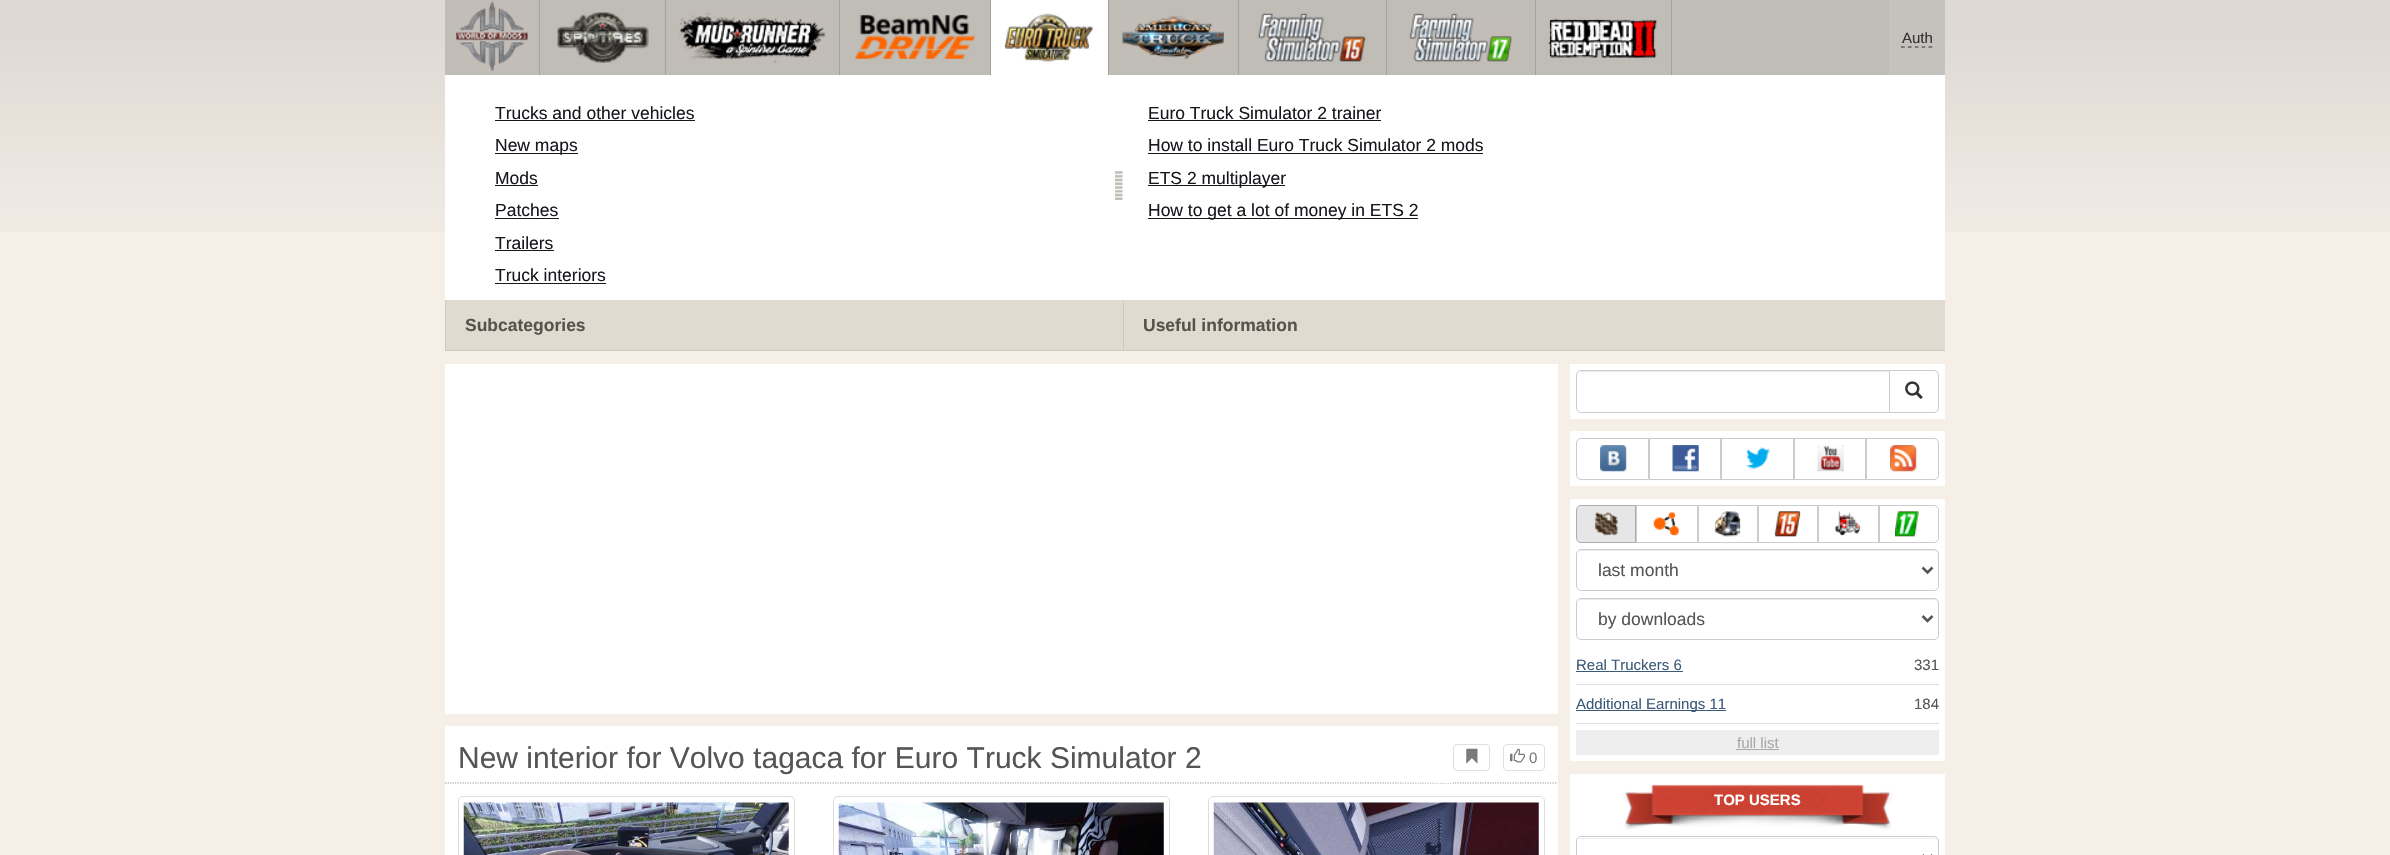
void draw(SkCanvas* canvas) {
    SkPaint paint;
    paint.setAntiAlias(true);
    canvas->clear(0xFFF5EFE8);
    canvas->drawImageRect(SkImages::DeferredFromEncodedData(SkData::MakeFromFileName("img1.png")), SkRect::MakeXYWH(0, 0, 2390, 232), SkSamplingOptions());
    paint.setColor(0xFFC0BCB6);
    canvas->drawRect(SkRect::MakeXYWH(445, 0, 1444, 75), paint);
    paint.setColor(0xFFA5A29D);
    canvas->drawRect(SkRect::MakeXYWH(539, 0, 1, 75), paint);
    canvas->drawImageRect(SkImages::DeferredFromEncodedData(SkData::MakeFromFileName("img2.png")), SkRect::MakeXYWH(456, 1, 72, 71), SkSamplingOptions());
    paint.setColor(0xFFC5C2BE);
    canvas->drawRect(SkRect::MakeXYWH(1889, 0, 56, 75), paint);
    SkFont font1(fontMgr->matchFamilyStyle("Liberation Sans", SkFontStyle::Normal()), 15);
    font1.setSubpixel(true);
    paint.setColor(0xFF333333);
    canvas->drawString("Auth", 1902, 43, font1, paint);
    paint.setStyle(SkPaint::kStroke_Style);
    paint.setStrokeWidth(1.2f);
    paint.setPathEffect(SkDashPathEffect::Make({{3.75f, 3.12f}}, 0));
    canvas->drawPath(SkPathBuilder().moveTo(1901, 47).lineTo(1932.5f, 47).detach(), paint);
    paint.setPathEffect(nullptr);
    paint.setStyle(SkPaint::kFill_Style);
    paint.setColor(0xFFA5A29D);
    canvas->drawRect(SkRect::MakeXYWH(665, 0, 1, 75), paint);
    canvas->drawImageRect(SkImages::DeferredFromEncodedData(SkData::MakeFromFileName("img3.png")), SkRect::MakeXYWH(557, 12, 92, 51), SkSamplingOptions());
    canvas->drawRect(SkRect::MakeXYWH(839, 0, 1, 75), paint);
    canvas->drawImageRect(SkImages::DeferredFromEncodedData(SkData::MakeFromFileName("img4.png")), SkRect::MakeXYWH(679, 12, 147, 51), SkSamplingOptions());
    canvas->drawRect(SkRect::MakeXYWH(990, 0, 1, 75), paint);
    canvas->drawImageRect(SkImages::DeferredFromEncodedData(SkData::MakeFromFileName("img5.png")), SkRect::MakeXYWH(854, 14, 122, 45), SkSamplingOptions());
    canvas->drawRect(SkRect::MakeXYWH(1238, 0, 1, 75), paint);
    canvas->drawImageRect(SkImages::DeferredFromEncodedData(SkData::MakeFromFileName("img6.png")), SkRect::MakeXYWH(1122, 15, 102, 44), SkSamplingOptions());
    canvas->drawRect(SkRect::MakeXYWH(1386, 0, 1, 75), paint);
    canvas->drawImageRect(SkImages::DeferredFromEncodedData(SkData::MakeFromFileName("img7.png")), SkRect::MakeXYWH(1258, 13, 108, 49), SkSamplingOptions());
    canvas->drawRect(SkRect::MakeXYWH(1535, 0, 1, 75), paint);
    canvas->drawImageRect(SkImages::DeferredFromEncodedData(SkData::MakeFromFileName("img8.png")), SkRect::MakeXYWH(1409, 13, 103, 50), SkSamplingOptions());
    canvas->drawRect(SkRect::MakeXYWH(1671, 0, 1, 75), paint);
    canvas->drawImageRect(SkImages::DeferredFromEncodedData(SkData::MakeFromFileName("img9.png")), SkRect::MakeXYWH(1548, 18, 109, 41), SkSamplingOptions());
    paint.setColor(0xFFFFFFFF);
    canvas->drawRect(SkRect::MakeXYWH(991, 0, 117, 75), paint);
    paint.setColor(0xFFA5A29D);
    canvas->drawRect(SkRect::MakeXYWH(1108, 0, 1, 75), paint);
    canvas->drawImageRect(SkImages::DeferredFromEncodedData(SkData::MakeFromFileName("img10.png")), SkRect::MakeXYWH(1004, 13, 89, 49), SkSamplingOptions());
    paint.setColor(0xFFFFFFFF);
    canvas->drawRect(SkRect::MakeXYWH(445, 75, 1500, 225), paint);
    paint.setColor(0xFFCFC8BC);
    canvas->drawRect(SkRect::MakeXYWH(445, 350, 1500, 1), paint);
    canvas->drawImageRect(SkImages::DeferredFromEncodedData(SkData::MakeFromFileName("img11.png")), SkRect::MakeXYWH(1115, 171, 8, 29), SkSamplingOptions());
    SkFont font2(fontMgr->matchFamilyStyle("Liberation Sans", SkFontStyle::Normal()), 17.5f);
    font2.setSubpixel(true);
    paint.setColor(0xFF18171D);
    canvas->drawString("Trucks and other vehicles", 495, 119, font2, paint);
    canvas->drawRect(SkRect::MakeXYWH(495, 120, 200, 1), paint);
    canvas->drawRect(SkRect::MakeXYWH(495, 153, 83, 1), paint);
    canvas->drawString("New maps", 495, 151, font2, paint);
    canvas->drawString("Mods", 495, 184, font2, paint);
    canvas->drawRect(SkRect::MakeXYWH(495, 185, 43, 1), paint);
    canvas->drawString("Patches", 495, 216, font2, paint);
    canvas->drawRect(SkRect::MakeXYWH(495, 218, 64, 1), paint);
    canvas->drawString("Trailers", 495, 249, font2, paint);
    canvas->drawRect(SkRect::MakeXYWH(495, 250, 59, 1), paint);
    canvas->drawString("Truck interiors", 495, 281, font2, paint);
    canvas->drawRect(SkRect::MakeXYWH(495, 283, 111, 1), paint);
    paint.setColor(0xFFE0DAD1);
    canvas->drawRect(SkRect::MakeXYWH(446, 300, 677, 50), paint);
    paint.setColor(0xFFCFC8BC);
    canvas->drawRect(SkRect::MakeXYWH(445, 300, 1, 50), paint);
    SkFont font3(fontMgr->matchFamilyStyle("Liberation Sans", SkFontStyle::Bold()), 17.5f);
    font3.setSubpixel(true);
    paint.setColor(0xFF57534B);
    canvas->drawString("Subcategories", 465, 331, font3, paint);
    paint.setColor(0xFF18171D);
    canvas->drawString("Euro Truck Simulator 2 trainer", 1148, 119, font2, paint);
    canvas->drawRect(SkRect::MakeXYWH(1148, 120, 233, 1), paint);
    canvas->drawString("How to install Euro Truck Simulator 2 mods", 1148, 151, font2, paint);
    canvas->drawRect(SkRect::MakeXYWH(1148, 153, 335, 1), paint);
    canvas->drawRect(SkRect::MakeXYWH(1148, 185, 137, 1), paint);
    canvas->drawString("ETS 2 multiplayer", 1148, 184, font2, paint);
    canvas->drawRect(SkRect::MakeXYWH(1148, 218, 270, 1), paint);
    canvas->drawString("How to get a lot of money in ETS 2", 1148, 216, font2, paint);
    paint.setColor(0xFFE0DAD1);
    canvas->drawRect(SkRect::MakeXYWH(1124, 300, 821, 50), paint);
    paint.setColor(0xFFCFC8BC);
    canvas->drawRect(SkRect::MakeXYWH(1123, 300, 1, 50), paint);
    paint.setColor(0xFF57534B);
    canvas->drawString("Useful information", 1143, 331, font3, paint);
    paint.setColor(0xFFFFFFFF);
    canvas->drawRect(SkRect::MakeXYWH(445, 364, 1113, 350), paint);
    canvas->drawRect(SkRect::MakeXYWH(445, 726, 1113, 129), paint);
    SkFont font4(fontMgr->matchFamilyStyle("Liberation Sans", SkFontStyle::Normal()), 30);
    font4.setSubpixel(true);
    paint.setColor(0xFF555555);
    canvas->drawString("New interior for Volvo tagaca for Euro Truck Simulator 2", 458, 768, font4, paint);
    paint.setStyle(SkPaint::kStroke_Style);
    paint.setColor(0xFF999999);
    paint.setPathEffect(SkDashPathEffect::Make({{1.25f, 1.25f}}, 0));
    canvas->drawPath(SkPathBuilder().moveTo(445, 783).lineTo(1557.5f, 783).detach(), paint);
    paint.setPathEffect(nullptr);
    paint.setStyle(SkPaint::kFill_Style);
    {
        const SkColor colors[] = {0x00FFFFFF, 0xFFFFFFFF};
        const float stops[] = {0, 1};
        const SkPoint ends[] = {{1390, 758}, {1453, 758}};
        paint.setShader(SkGradientShader::MakeLinear(ends, colors, stops, 2, SkTileMode::kClamp));
        paint.setAlpha(255);
    }
    canvas->drawRect(SkRect::MakeXYWH(1395, 782, 58, 1), paint);
    paint.setStyle(SkPaint::kStroke_Style);
    paint.setStrokeWidth(1);
    paint.setShader(nullptr);
    paint.setColor(0xFFDEDEDE);
    canvas->drawRoundRect(SkRect::MakeXYWH(1453.5f, 744.5f, 36, 26), 3.5f, 3.5f, paint);
    canvas->drawImageRect(SkImages::DeferredFromEncodedData(SkData::MakeFromFileName("img12.png")), SkRect::MakeXYWH(1466, 748, 12, 16), SkSamplingOptions());
    canvas->drawRoundRect(SkRect::MakeXYWH(1503.5f, 744.5f, 41, 26), 3.5f, 3.5f, paint);
    canvas->drawImageRect(SkImages::DeferredFromEncodedData(SkData::MakeFromFileName("img13.png")), SkRect::MakeXYWH(1510, 748, 15, 15), SkSamplingOptions());
    paint.setStyle(SkPaint::kFill_Style);
    paint.setColor(0xFF7A7A7A);
    canvas->drawString("0", 1529, 763, font1, paint);
    paint.setStyle(SkPaint::kStroke_Style);
    paint.setColor(0xFFDDDDDD);
    canvas->drawRoundRect(SkRect::MakeXYWH(458.5f, 796.5f, 336, 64), 4.5f, 4.5f, paint);
    canvas->drawImageRect(SkImages::DeferredFromEncodedData(SkData::MakeFromFileName("img14.png")), SkRect::MakeXYWH(463, 802, 326, 53), SkSamplingOptions());
    canvas->drawRoundRect(SkRect::MakeXYWH(833.5f, 796.5f, 336, 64), 4.5f, 4.5f, paint);
    canvas->drawImageRect(SkImages::DeferredFromEncodedData(SkData::MakeFromFileName("img15.png")), SkRect::MakeXYWH(838, 802, 326, 53), SkSamplingOptions());
    canvas->drawRoundRect(SkRect::MakeXYWH(1208.5f, 796.5f, 336, 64), 4.5f, 4.5f, paint);
    canvas->drawImageRect(SkImages::DeferredFromEncodedData(SkData::MakeFromFileName("img16.png")), SkRect::MakeXYWH(1213, 802, 326, 53), SkSamplingOptions());
    paint.setStyle(SkPaint::kFill_Style);
    paint.setColor(0xFFFFFFFF);
    canvas->drawRect(SkRect::MakeXYWH(1570, 364, 375, 55), paint);
    paint.setColor(0xFFECECEC);
    canvas->drawPath(SkPathBuilder().moveTo(1581, 372).lineTo(1889, 372).lineTo(1889, 371).lineTo(1582, 371).cubicTo(1580, 371, 1578, 373, 1578, 375).lineTo(1578, 376).cubicTo(1578, 374, 1579, 372, 1581, 372).close().detach(), paint);
    paint.setStyle(SkPaint::kStroke_Style);
    paint.setColor(0xFFCCCCCC);
    canvas->drawPath(SkPathBuilder().moveTo(1581, 370.5f).lineTo(1889.5f, 370.5f).lineTo(1889.5f, 412.5f).lineTo(1581, 412.5f).cubicTo(1578.5f, 412.5f, 1576.5f, 410.5f, 1576.5f, 408).lineTo(1576.5f, 375).cubicTo(1576.5f, 372.5f, 1578.5f, 370.5f, 1581, 370.5f).close().detach(), paint);
    paint.setStyle(SkPaint::kFill_Style);
    paint.setColor(0xFFFFFFFF);
    canvas->drawPath(SkPathBuilder().moveTo(1889.5f, 370.5f).lineTo(1934, 370.5f).cubicTo(1936.5f, 370.5f, 1938.5f, 372.5f, 1938.5f, 375).lineTo(1938.5f, 408).cubicTo(1938.5f, 410.5f, 1936.5f, 412.5f, 1934, 412.5f).lineTo(1889.5f, 412.5f).close().detach(), paint);
    paint.setStyle(SkPaint::kStroke_Style);
    paint.setColor(0xFFCCCCCC);
    canvas->drawPath(SkPathBuilder().moveTo(1889.5f, 370.5f).lineTo(1934, 370.5f).cubicTo(1936.5f, 370.5f, 1938.5f, 372.5f, 1938.5f, 375).lineTo(1938.5f, 408).cubicTo(1938.5f, 410.5f, 1936.5f, 412.5f, 1934, 412.5f).lineTo(1889.5f, 412.5f).close().detach(), paint);
    canvas->drawImageRect(SkImages::DeferredFromEncodedData(SkData::MakeFromFileName("img17.png")), SkRect::MakeXYWH(1905, 381, 18, 18), SkSamplingOptions());
    paint.setStyle(SkPaint::kFill_Style);
    paint.setColor(0xFFFFFFFF);
    canvas->drawRect(SkRect::MakeXYWH(1570, 431, 375, 55), paint);
    paint.setStyle(SkPaint::kStroke_Style);
    paint.setColor(0xFFCCCCCC);
    canvas->drawPath(SkPathBuilder().moveTo(1581, 438.5f).lineTo(1648.5f, 438.5f).lineTo(1648.5f, 479.5f).lineTo(1581, 479.5f).cubicTo(1578.5f, 479.5f, 1576.5f, 477.5f, 1576.5f, 475).lineTo(1576.5f, 443).cubicTo(1576.5f, 440.5f, 1578.5f, 438.5f, 1581, 438.5f).close().detach(), paint);
    canvas->drawImageRect(SkImages::DeferredFromEncodedData(SkData::MakeFromFileName("img18.png")), SkRect::MakeXYWH(1600, 445, 27, 27), SkSamplingOptions());
    canvas->drawRect(SkRect::MakeXYWH(1649.5f, 438.5f, 71, 41), paint);
    canvas->drawImageRect(SkImages::DeferredFromEncodedData(SkData::MakeFromFileName("img19.png")), SkRect::MakeXYWH(1672, 445, 27, 27), SkSamplingOptions());
    canvas->drawRect(SkRect::MakeXYWH(1721.5f, 438.5f, 72, 41), paint);
    canvas->drawImageRect(SkImages::DeferredFromEncodedData(SkData::MakeFromFileName("img20.png")), SkRect::MakeXYWH(1746, 447, 25, 22), SkSamplingOptions());
    canvas->drawRect(SkRect::MakeXYWH(1794.5f, 438.5f, 71, 41), paint);
    canvas->drawImageRect(SkImages::DeferredFromEncodedData(SkData::MakeFromFileName("img21.png")), SkRect::MakeXYWH(1817, 445, 27, 27), SkSamplingOptions());
    canvas->drawPath(SkPathBuilder().moveTo(1866.5f, 438.5f).lineTo(1934, 438.5f).cubicTo(1936.5f, 438.5f, 1938.5f, 440.5f, 1938.5f, 443).lineTo(1938.5f, 475).cubicTo(1938.5f, 477.5f, 1936.5f, 479.5f, 1934, 479.5f).lineTo(1866.5f, 479.5f).close().detach(), paint);
    canvas->drawImageRect(SkImages::DeferredFromEncodedData(SkData::MakeFromFileName("img22.png")), SkRect::MakeXYWH(1890, 445, 27, 27), SkSamplingOptions());
    paint.setStyle(SkPaint::kFill_Style);
    paint.setColor(0xFFFFFFFF);
    canvas->drawRect(SkRect::MakeXYWH(1570, 499, 375, 262), paint);
    paint.setColor(0xFFE6E6E6);
    canvas->drawPath(SkPathBuilder().moveTo(1581, 505.5f).lineTo(1635.5f, 505.5f).lineTo(1635.5f, 542.5f).lineTo(1581, 542.5f).cubicTo(1578.5f, 542.5f, 1576.5f, 540.5f, 1576.5f, 538).lineTo(1576.5f, 510).cubicTo(1576.5f, 507.5f, 1578.5f, 505.5f, 1581, 505.5f).close().detach(), paint);
    paint.setStyle(SkPaint::kStroke_Style);
    paint.setColor(0xFFADADAD);
    canvas->drawPath(SkPathBuilder().moveTo(1581, 505.5f).lineTo(1635.5f, 505.5f).lineTo(1635.5f, 542.5f).lineTo(1581, 542.5f).cubicTo(1578.5f, 542.5f, 1576.5f, 540.5f, 1576.5f, 538).lineTo(1576.5f, 510).cubicTo(1576.5f, 507.5f, 1578.5f, 505.5f, 1581, 505.5f).close().detach(), paint);
    canvas->drawImageRect(SkImages::DeferredFromEncodedData(SkData::MakeFromFileName("img23.png")), SkRect::MakeXYWH(1594, 512, 24, 24), SkSamplingOptions());
    paint.setColor(0xFFCCCCCC);
    canvas->drawRect(SkRect::MakeXYWH(1636.5f, 505.5f, 61, 37), paint);
    canvas->drawImageRect(SkImages::DeferredFromEncodedData(SkData::MakeFromFileName("img24.png")), SkRect::MakeXYWH(1653, 512, 26, 24), SkSamplingOptions());
    canvas->drawRect(SkRect::MakeXYWH(1698.5f, 505.5f, 59, 37), paint);
    canvas->drawImageRect(SkImages::DeferredFromEncodedData(SkData::MakeFromFileName("img25.png")), SkRect::MakeXYWH(1714, 511, 27, 26), SkSamplingOptions());
    canvas->drawRect(SkRect::MakeXYWH(1758.5f, 505.5f, 59, 37), paint);
    canvas->drawImageRect(SkImages::DeferredFromEncodedData(SkData::MakeFromFileName("img26.png")), SkRect::MakeXYWH(1774, 511, 27, 26), SkSamplingOptions());
    canvas->drawRect(SkRect::MakeXYWH(1818.5f, 505.5f, 60, 37), paint);
    canvas->drawImageRect(SkImages::DeferredFromEncodedData(SkData::MakeFromFileName("img27.png")), SkRect::MakeXYWH(1834, 511, 27, 25), SkSamplingOptions());
    canvas->drawPath(SkPathBuilder().moveTo(1879.5f, 505.5f).lineTo(1934, 505.5f).cubicTo(1936.5f, 505.5f, 1938.5f, 507.5f, 1938.5f, 510).lineTo(1938.5f, 538).cubicTo(1938.5f, 540.5f, 1936.5f, 542.5f, 1934, 542.5f).lineTo(1879.5f, 542.5f).close().detach(), paint);
    canvas->drawImageRect(SkImages::DeferredFromEncodedData(SkData::MakeFromFileName("img28.png")), SkRect::MakeXYWH(1895, 511, 24, 26), SkSamplingOptions());
    paint.setStyle(SkPaint::kFill_Style);
    paint.setColor(0xFFECECEC);
    canvas->drawPath(SkPathBuilder().moveTo(1581, 551).lineTo(1934, 551).cubicTo(1936, 551, 1938, 553, 1938, 555).lineTo(1937, 552).lineTo(1935, 550).lineTo(1582, 550).cubicTo(1579, 550, 1578, 552, 1578, 555).cubicTo(1578, 553, 1579, 551, 1581, 551).close().detach(), paint);
    paint.setStyle(SkPaint::kStroke_Style);
    paint.setColor(0xFFCCCCCC);
    canvas->drawRoundRect(SkRect::MakeXYWH(1576.5f, 549.5f, 362, 41), 4.5f, 4.5f, paint);
    paint.setStrokeWidth(2.5f);
    paint.setColor(0xFF555555);
    canvas->drawPath(SkPathBuilder().moveTo(1922.5f, 567.5f).lineTo(1927.5f, 572.5f).lineTo(1932.5f, 567.5f).detach(), paint);
    paint.setStyle(SkPaint::kFill_Style);
    canvas->drawString("last month", 1598, 576, font2, paint);
    paint.setColor(0xFFECECEC);
    canvas->drawPath(SkPathBuilder().moveTo(1581, 600).lineTo(1934, 600).cubicTo(1936, 600, 1938, 602, 1938, 604).lineTo(1937, 601).lineTo(1935, 599).lineTo(1582, 599).cubicTo(1579, 599, 1578, 601, 1578, 604).cubicTo(1578, 602, 1579, 600, 1581, 600).close().detach(), paint);
    paint.setStyle(SkPaint::kStroke_Style);
    paint.setStrokeWidth(1);
    paint.setColor(0xFFCCCCCC);
    canvas->drawRoundRect(SkRect::MakeXYWH(1576.5f, 598.5f, 362, 41), 4.5f, 4.5f, paint);
    paint.setStrokeWidth(2.5f);
    paint.setColor(0xFF555555);
    canvas->drawPath(SkPathBuilder().moveTo(1922.5f, 616).lineTo(1927.5f, 621).lineTo(1932.5f, 616).detach(), paint);
    paint.setStyle(SkPaint::kFill_Style);
    canvas->drawString("by downloads", 1598, 625, font2, paint);
    paint.setColor(0xFFDDDDDD);
    canvas->drawRect(SkRect::MakeXYWH(1576, 684, 363, 1), paint);
    paint.setColor(0xFF3C5A78);
    canvas->drawString("Real Truckers 6", 1576, 670, font1, paint);
    canvas->drawRect(SkRect::MakeXYWH(1576, 671, 107, 1), paint);
    paint.setColor(0xFF555555);
    canvas->drawString("331", 1914, 670, font1, paint);
    paint.setColor(0xFFDDDDDD);
    canvas->drawRect(SkRect::MakeXYWH(1576, 723, 363, 1), paint);
    paint.setColor(0xFF3C5A78);
    canvas->drawRect(SkRect::MakeXYWH(1576, 710, 150, 1), paint);
    canvas->drawString("Additional Earnings 11", 1576, 709, font1, paint);
    paint.setColor(0xFF555555);
    canvas->drawString("184", 1914, 709, font1, paint);
    paint.setColor(0xFFEEEEEE);
    canvas->drawRect(SkRect::MakeXYWH(1576, 730, 363, 25), paint);
    paint.setColor(0xFFAAAAAA);
    canvas->drawString("full list", 1737, 748, font1, paint);
    canvas->drawRect(SkRect::MakeXYWH(1736, 749, 43, 1), paint);
    paint.setColor(0xFFFFFFFF);
    canvas->drawRect(SkRect::MakeXYWH(1570, 774, 375, 81), paint);
    canvas->drawImageRect(SkImages::DeferredFromEncodedData(SkData::MakeFromFileName("img29.png")), SkRect::MakeXYWH(1622, 784, 271, 46), SkSamplingOptions());
    SkFont font5(fontMgr->matchFamilyStyle("Liberation Sans", SkFontStyle::Bold()), 15);
    font5.setSubpixel(true);
    canvas->drawString("TOP USERS", 1714, 805, font5, paint);
    paint.setColor(0xFFECECEC);
    canvas->drawPath(SkPathBuilder().moveTo(1581, 839).lineTo(1934, 839).cubicTo(1936, 839, 1938, 840, 1938, 842).cubicTo(1938, 840, 1936, 838, 1934, 838).lineTo(1582, 838).cubicTo(1581, 838, 1579, 839, 1579, 840).close().detach(), paint);
    paint.setStyle(SkPaint::kStroke_Style);
    paint.setStrokeWidth(1);
    paint.setColor(0xFFCCCCCC);
    canvas->drawRoundRect(SkRect::MakeXYWH(1576.5f, 836.5f, 362, 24), 4.5f, 4.5f, paint);
    paint.setStrokeWidth(2.5f);
    paint.setColor(0xFF555555);
    canvas->drawPath(SkPathBuilder().moveTo(1922.5f, 855).lineTo(1927.5f, 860).lineTo(1932.5f, 855).detach(), paint);
}
